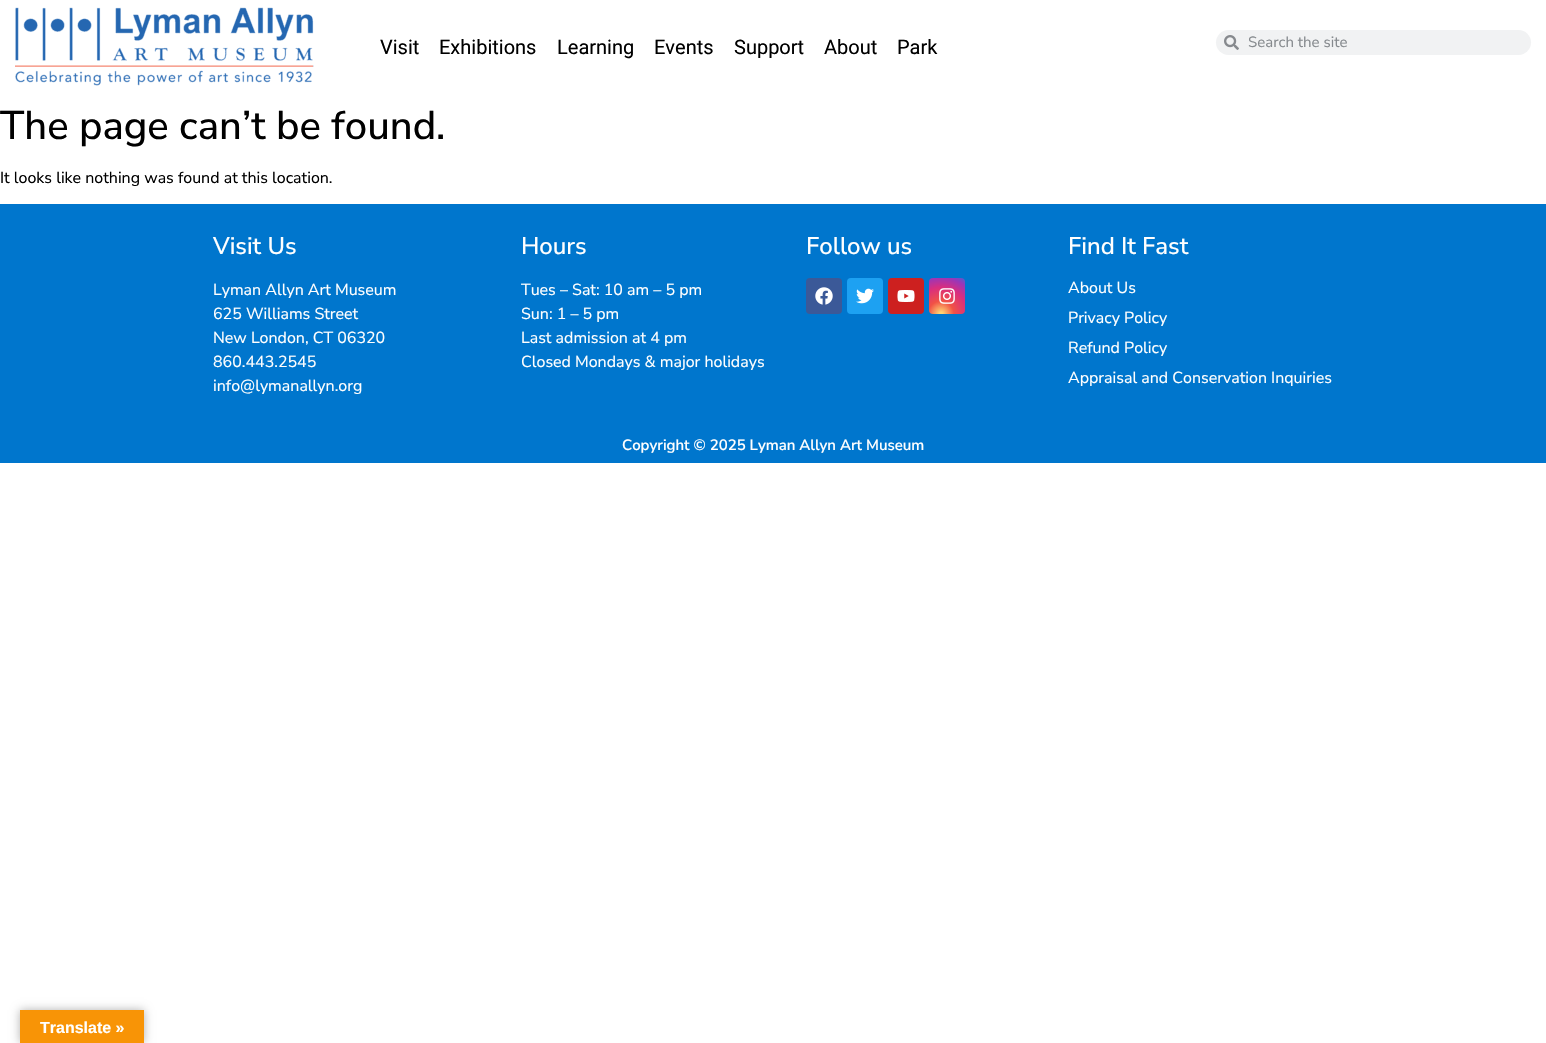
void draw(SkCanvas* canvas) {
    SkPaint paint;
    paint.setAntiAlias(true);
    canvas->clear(0xFFFFFFFF);
    canvas->drawImageRect(SkImages::DeferredFromEncodedData(SkData::MakeFromFileName("img1.png")), SkRect::MakeXYWH(15, 7, 299, 79), SkSamplingOptions());
    SkFont font1(fontMgr->matchFamilyStyle("Roboto", SkFontStyle::Normal()), 20);
    font1.setSubpixel(true);
    paint.setColor(0xFF000000);
    canvas->drawString("Visit", 380, 54, font1, paint);
    canvas->drawString("Exhibitions", 439, 54, font1, paint);
    canvas->drawString("Learning", 557, 54, font1, paint);
    canvas->drawString("Events", 654, 54, font1, paint);
    canvas->drawString("Support", 734, 54, font1, paint);
    canvas->drawString("About", 824, 54, font1, paint);
    canvas->drawString("Park", 897, 54, font1, paint);
    paint.setColor(0xFFF1F2F3);
    canvas->drawRoundRect(SkRect::MakeXYWH(1216, 30, 315, 25), 12.5f, 12.5f, paint);
    canvas->drawImageRect(SkImages::DeferredFromEncodedData(SkData::MakeFromFileName("img2.png")), SkRect::MakeXYWH(1224, 35, 15, 15), SkSamplingOptions());
    SkFont font2(fontMgr->matchFamilyStyle("Nunito Sans", SkFontStyle::Normal()), 15);
    font2.setSubpixel(true);
    paint.setColor(0xFF868A8E);
    canvas->drawString("Search the site", 1248, 47, font2, paint);
    SkFont font3(fontMgr->matchFamilyStyle("Nunito Sans", SkFontStyle(500, SkFontStyle::kNormal_Width, SkFontStyle::kUpright_Slant)), 40);
    font3.setSubpixel(true);
    paint.setColor(0xFF000000);
    canvas->drawString("The page can’t be found.", 0, 139, font3, paint);
    SkFont font4(fontMgr->matchFamilyStyle("Nunito Sans", SkFontStyle::Normal()), 16);
    font4.setSubpixel(true);
    canvas->drawString("It looks like nothing was found at this location.", 0, 183, font4, paint);
    paint.setColor(0xFF0076CD);
    canvas->drawRect(SkRect::MakeXYWH(0, 204, 1546, 259), paint);
    SkFont font5(fontMgr->matchFamilyStyle("Nunito Sans", SkFontStyle(500, SkFontStyle::kNormal_Width, SkFontStyle::kUpright_Slant)), 24);
    font5.setSubpixel(true);
    paint.setColor(0xFFFFFFFF);
    canvas->drawString("Visit Us", 213, 254, font5, paint);
    canvas->drawString("Lyman Allyn Art Museum", 213, 295, font4, paint);
    canvas->drawString("625 Williams Street", 213, 319, font4, paint);
    canvas->drawString("New London, CT 06320", 213, 343, font4, paint);
    canvas->drawString("860.443.2545", 213, 367, font4, paint);
    canvas->drawString("info@lymanallyn.org", 213, 391, font4, paint);
    canvas->drawString("Hours", 521, 254, font5, paint);
    canvas->drawString("Tues – Sat: 10 am – 5 pm", 521, 295, font4, paint);
    canvas->drawString("Sun: 1 – 5 pm", 521, 319, font4, paint);
    canvas->drawString("Last admission at 4 pm", 521, 343, font4, paint);
    canvas->drawString("Closed Mondays & major holidays", 521, 367, font4, paint);
    canvas->drawString("Follow us", 806, 254, font5, paint);
    paint.setColor(0xFF3B5998);
    canvas->drawRoundRect(SkRect::MakeXYWH(806, 278, 36, 36), 4, 4, paint);
    canvas->drawImageRect(SkImages::DeferredFromEncodedData(SkData::MakeFromFileName("img3.png")), SkRect::MakeXYWH(815, 287, 18, 18), SkSamplingOptions());
    paint.setColor(0xFF1DA1F2);
    canvas->drawRoundRect(SkRect::MakeXYWH(847, 278, 36, 36), 4, 4, paint);
    canvas->drawImageRect(SkImages::DeferredFromEncodedData(SkData::MakeFromFileName("img4.png")), SkRect::MakeXYWH(856, 288, 18, 16), SkSamplingOptions());
    paint.setColor(0xFFCD201F);
    canvas->drawRoundRect(SkRect::MakeXYWH(888, 278, 36, 36), 4, 4, paint);
    canvas->drawImageRect(SkImages::DeferredFromEncodedData(SkData::MakeFromFileName("img5.png")), SkRect::MakeXYWH(897, 290, 18, 12), SkSamplingOptions());
    {
        const SkColor colors[] = {0xFFFED373, 0xFFF15245, 0xFFD92E7F, 0xFF9B36B7, 0xFF515ECF};
        const float stops[] = {0.04f, 0.3f, 0.62f, 0.85f, 1};
        paint.setShader(SkGradientShader::MakeRadial({941, 314}, 43, colors, stops, 5, SkTileMode::kClamp));
        paint.setAlpha(255);
    }
    canvas->drawRoundRect(SkRect::MakeXYWH(929, 278, 36, 36), 4, 4, paint);
    canvas->drawImageRect(SkImages::DeferredFromEncodedData(SkData::MakeFromFileName("img6.png")), SkRect::MakeXYWH(939, 288, 16, 16), SkSamplingOptions());
    paint.setShader(nullptr);
    paint.setColor(0xFFFFFFFF);
    canvas->drawString("Find It Fast", 1068, 254, font5, paint);
    canvas->drawString("About Us", 1068, 293, font4, paint);
    canvas->drawString("Privacy Policy", 1068, 323, font4, paint);
    canvas->drawString("Refund Policy", 1068, 353, font4, paint);
    canvas->drawString("Appraisal and Conservation Inquiries", 1068, 383, font4, paint);
    SkFont font6(fontMgr->matchFamilyStyle("Nunito Sans", SkFontStyle(600, SkFontStyle::kNormal_Width, SkFontStyle::kUpright_Slant)), 15);
    font6.setSubpixel(true);
    canvas->drawString("Copyright © 2025 Lyman Allyn Art Museum", 622, 450, font6, paint);
    paint.setColor(0x4D000000);
    paint.setMaskFilter(SkMaskFilter::MakeBlur(kNormal_SkBlurStyle, 4.5f));
    canvas->drawRect(SkRect::MakeXYWH(20, 1010, 124, 33), paint);
    paint.setMaskFilter(nullptr);
    paint.setColor(0xFFF89406);
    canvas->drawRect(SkRect::MakeXYWH(20, 1010, 124, 33), paint);
    SkFont font7(fontMgr->matchFamilyStyle("Liberation Sans", SkFontStyle::Bold()), 16);
    font7.setSubpixel(true);
    paint.setColor(0xFFFFFFFF);
    canvas->drawString("Translate »", 40, 1033, font7, paint);
}
